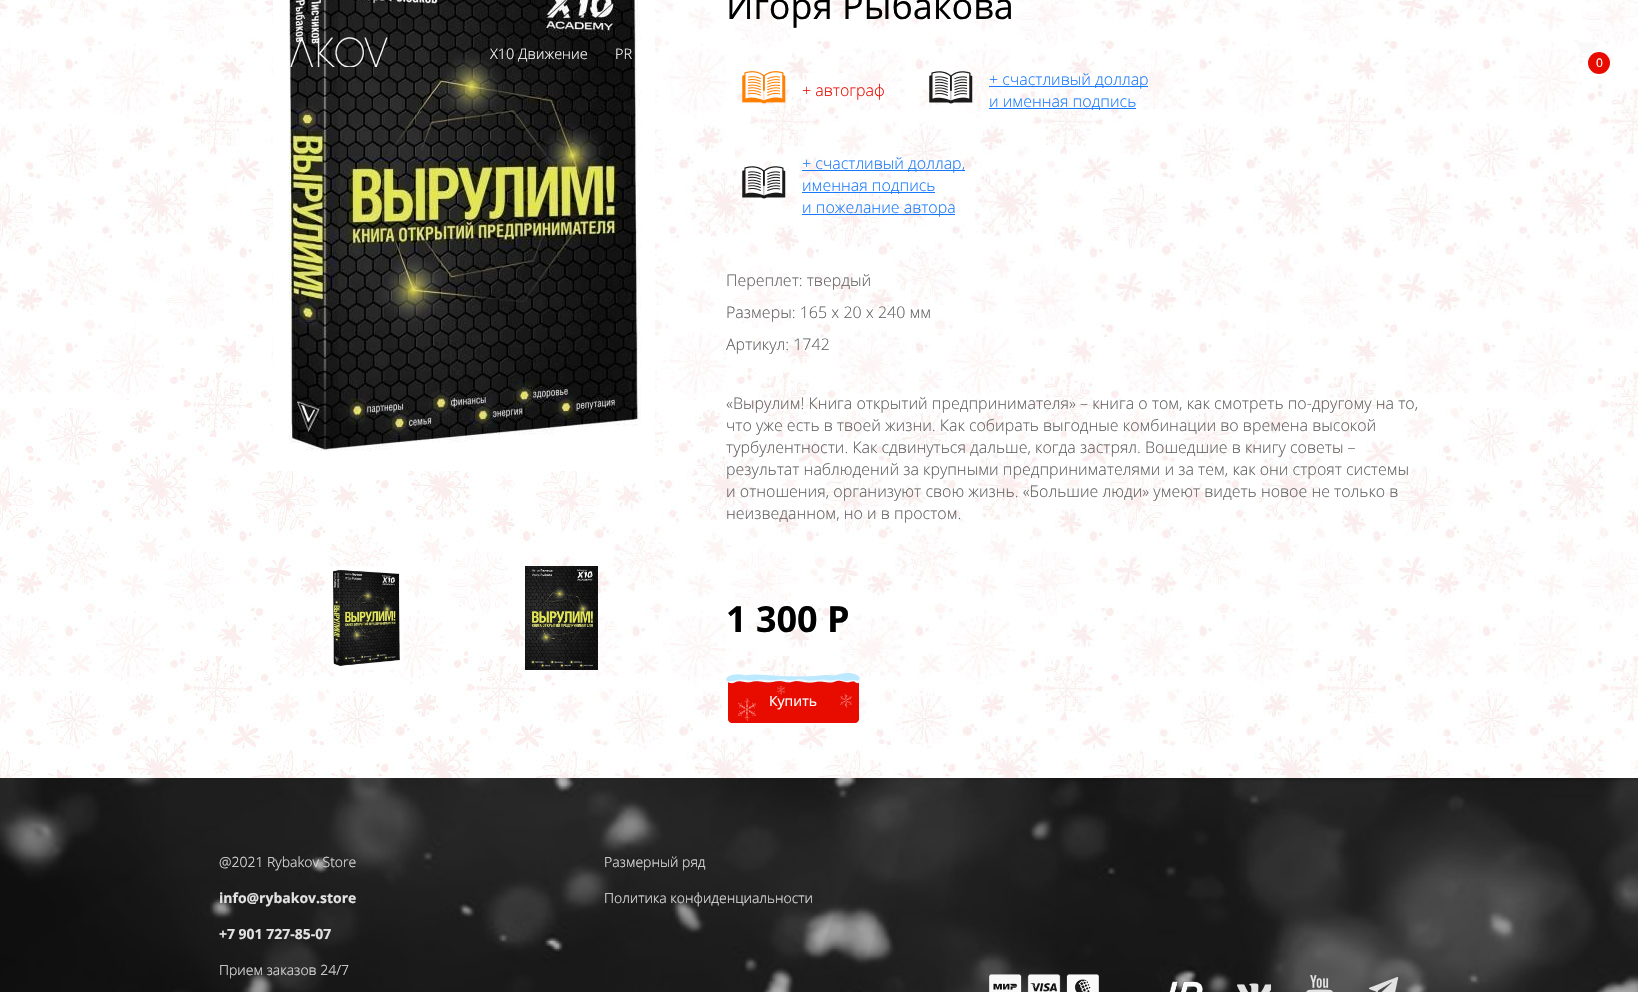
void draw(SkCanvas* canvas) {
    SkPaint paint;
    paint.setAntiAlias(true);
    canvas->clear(0xFFFFFFFF);
    canvas->drawImageRect(SkImages::DeferredFromEncodedData(SkData::MakeFromFileName("img1.png")), SkRect::MakeXYWH(0, 0, 1638, 778), SkSamplingOptions());
    canvas->drawImageRect(SkImages::DeferredFromEncodedData(SkData::MakeFromFileName("img3.png")), SkRect::MakeXYWH(273, 0, 382, 471), SkSamplingOptions());
    canvas->drawImageRect(SkImages::DeferredFromEncodedData(SkData::MakeFromFileName("img2.png")), SkRect::MakeXYWH(221, 37, 167, 30), SkSamplingOptions());
    SkFont font1(fontMgr->matchFamilyStyle("Open Sans", SkFontStyle(300, SkFontStyle::kNormal_Width, SkFontStyle::kUpright_Slant)), 14.5f);
    font1.setSubpixel(true);
    paint.setColor(0xFFFFFFFF);
    canvas->drawString("Х10 Движение", 490, 59, font1, paint);
    canvas->drawString("PR", 615, 59, font1, paint);
    canvas->drawImageRect(SkImages::DeferredFromEncodedData(SkData::MakeFromFileName("img4.png")), SkRect::MakeXYWH(330, 566, 73, 104), SkSamplingOptions());
    canvas->drawImageRect(SkImages::DeferredFromEncodedData(SkData::MakeFromFileName("img5.png")), SkRect::MakeXYWH(525, 566, 73, 104), SkSamplingOptions());
    SkFont font2(fontMgr->matchFamilyStyle("Open Sans", SkFontStyle::Normal()), 36);
    font2.setSubpixel(true);
    paint.setColor(0xFF000000);
    canvas->drawString("Игоря Рыбакова", 726, 19, font2, paint);
    canvas->drawImageRect(SkImages::DeferredFromEncodedData(SkData::MakeFromFileName("img6.png")), SkRect::MakeXYWH(742, 71, 44, 33), SkSamplingOptions());
    SkFont font3(fontMgr->matchFamilyStyle("Open Sans", SkFontStyle(300, SkFontStyle::kNormal_Width, SkFontStyle::kUpright_Slant)), 16);
    font3.setSubpixel(true);
    paint.setColor(0xFFE80C00);
    canvas->drawString("+ автограф", 802, 96, font3, paint);
    canvas->drawImageRect(SkImages::DeferredFromEncodedData(SkData::MakeFromFileName("img7.png")), SkRect::MakeXYWH(929, 71, 44, 33), SkSamplingOptions());
    paint.setColor(0xFF1779FA);
    canvas->drawRect(SkRect::MakeXYWH(989, 86, 159, 1), paint);
    canvas->drawString("+ счастливый доллар", 989, 85, font3, paint);
    canvas->drawRect(SkRect::MakeXYWH(989, 108, 147, 1), paint);
    canvas->drawString("и именная подпись", 989, 107, font3, paint);
    canvas->drawImageRect(SkImages::DeferredFromEncodedData(SkData::MakeFromFileName("img8.png")), SkRect::MakeXYWH(742, 166, 44, 33), SkSamplingOptions());
    canvas->drawRect(SkRect::MakeXYWH(802, 170, 163, 1), paint);
    canvas->drawString("+ счастливый доллар,", 802, 169, font3, paint);
    canvas->drawRect(SkRect::MakeXYWH(802, 192, 133, 1), paint);
    canvas->drawString("именная подпись", 802, 191, font3, paint);
    canvas->drawRect(SkRect::MakeXYWH(802, 214, 153, 1), paint);
    canvas->drawString("и пожелание автора", 802, 213, font3, paint);
    paint.setColor(0xFF606060);
    canvas->drawString("Переплет: твердый", 726, 286, font3, paint);
    canvas->drawString("Размеры: 165 x 20 x 240 мм", 726, 318, font3, paint);
    canvas->drawString("Артикул: 1742", 726, 350, font3, paint);
    canvas->drawString("«Вырулим! Книга открытий предпринимателя» – книга о том, как смотреть по-другому на то,", 726, 409, font3, paint);
    canvas->drawString("что уже есть в твоей жизни. Как собирать выгодные комбинации во времена высокой", 726, 431, font3, paint);
    canvas->drawString("турбулентности. Как сдвинуться дальше, когда застрял. Вошедшие в книгу советы –", 726, 453, font3, paint);
    canvas->drawString("результат наблюдений за крупными предпринимателями и за тем, как они строят системы", 726, 475, font3, paint);
    canvas->drawString("и отношения, организуют свою жизнь. «Большие люди» умеют видеть новое не только в", 726, 497, font3, paint);
    canvas->drawString("неизведанном, но и в простом.", 726, 519, font3, paint);
    SkFont font4(fontMgr->matchFamilyStyle("Open Sans", SkFontStyle::Bold()), 36);
    font4.setSubpixel(true);
    paint.setColor(0xFF000000);
    canvas->drawString("1 300 Р", 726, 632, font4, paint);
    canvas->drawImageRect(SkImages::DeferredFromEncodedData(SkData::MakeFromFileName("img9.png")), SkRect::MakeXYWH(726, 673, 134, 50), SkSamplingOptions());
    SkFont font5(fontMgr->matchFamilyStyle("Open Sans", SkFontStyle::Normal()), 14);
    font5.setSubpixel(true);
    paint.setColor(0xFFFFFFFF);
    canvas->drawString("Купить", 769, 706, font5, paint);
    canvas->drawImageRect(SkImages::DeferredFromEncodedData(SkData::MakeFromFileName("img10.png")), SkRect::MakeXYWH(1574, 40, 24, 24), SkSamplingOptions());
    paint.setColor(0xFFE80C00);
    canvas->drawCircle(1599, 63, 11, paint);
    SkFont font6(fontMgr->matchFamilyStyle("Open Sans", SkFontStyle::Normal()), 12);
    font6.setSubpixel(true);
    paint.setColor(0xFFFFFFFF);
    canvas->drawString("0", 1596, 67, font6, paint);
    canvas->drawImageRect(SkImages::DeferredFromEncodedData(SkData::MakeFromFileName("img11.png")), SkRect::MakeXYWH(0, 778, 1638, 214), SkSamplingOptions());
    SkFont font7(fontMgr->matchFamilyStyle("Open Sans", SkFontStyle(300, SkFontStyle::kNormal_Width, SkFontStyle::kUpright_Slant)), 14);
    font7.setSubpixel(true);
    paint.setColor(0xFFE2E2E2);
    canvas->drawString("@2021 Rybakov Store", 219, 867, font7, paint);
    SkFont font8(fontMgr->matchFamilyStyle("Open Sans", SkFontStyle::Bold()), 14);
    font8.setSubpixel(true);
    canvas->drawString("info@rybakov.store", 219, 903, font8, paint);
    canvas->drawString("+7 901 727-85-07", 219, 939, font8, paint);
    canvas->drawString("Прием заказов 24/7", 219, 975, font7, paint);
    canvas->drawString("Размерный ряд", 604, 867, font7, paint);
    canvas->drawString("Политика конфиденциальности", 604, 903, font7, paint);
    canvas->drawImageRect(SkImages::DeferredFromEncodedData(SkData::MakeFromFileName("img12.png")), SkRect::MakeXYWH(989, 974, 110, 18), SkSamplingOptions());
    canvas->drawImageRect(SkImages::DeferredFromEncodedData(SkData::MakeFromFileName("img13.png")), SkRect::MakeXYWH(1169, 981, 34, 11), SkSamplingOptions());
    canvas->drawImageRect(SkImages::DeferredFromEncodedData(SkData::MakeFromFileName("img14.png")), SkRect::MakeXYWH(1237, 983, 34, 9), SkSamplingOptions());
    canvas->drawImageRect(SkImages::DeferredFromEncodedData(SkData::MakeFromFileName("img15.png")), SkRect::MakeXYWH(1306, 975, 27, 17), SkSamplingOptions());
    canvas->drawImageRect(SkImages::DeferredFromEncodedData(SkData::MakeFromFileName("img16.png")), SkRect::MakeXYWH(1369, 977, 30, 15), SkSamplingOptions());
}
